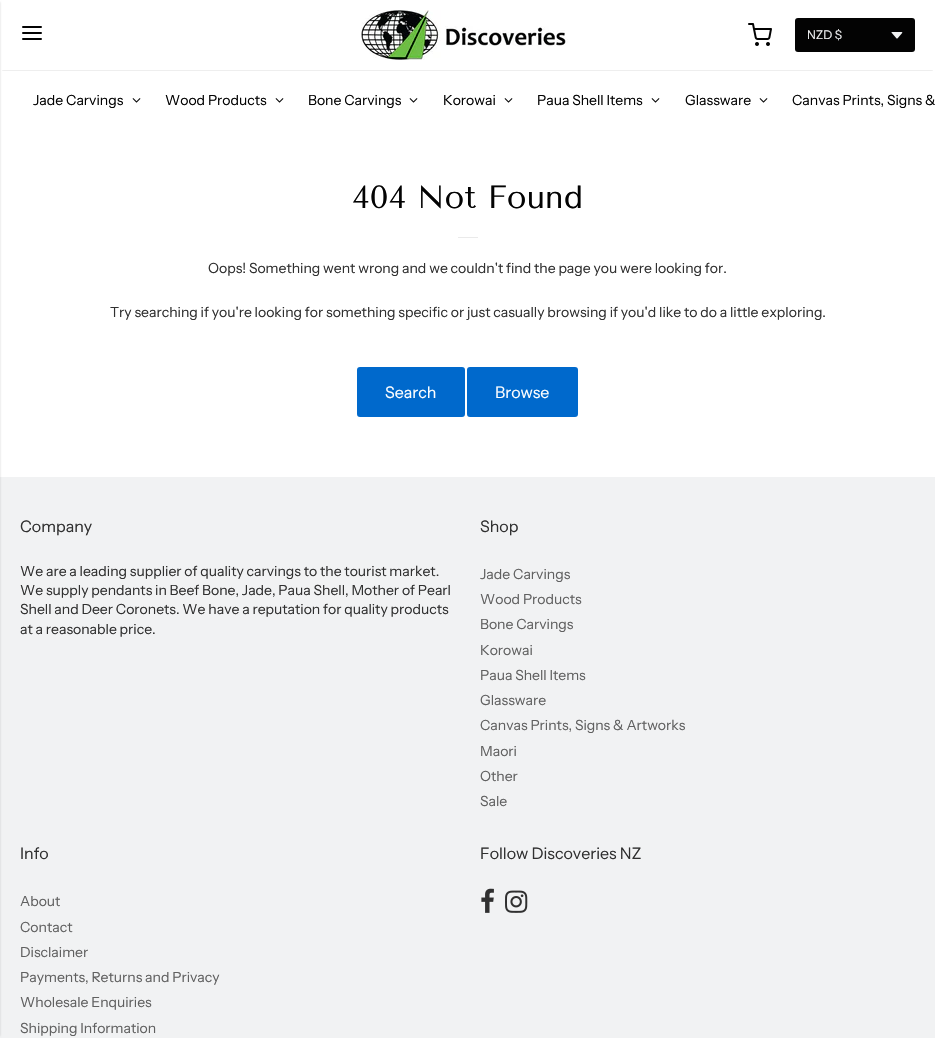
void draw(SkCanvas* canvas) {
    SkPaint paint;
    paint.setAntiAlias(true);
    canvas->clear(0xFFFFFFFF);
    paint.setColor(0xFFF1F2F3);
    canvas->drawRect(SkRect::MakeXYWH(0, 477, 935, 561), paint);
    paint.setColor(0x33000000);
    paint.setMaskFilter(SkMaskFilter::MakeBlur(kNormal_SkBlurStyle, 1));
    canvas->drawRect(SkRect::MakeXYWH(-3, 2, 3, 1034), paint);
    paint.setMaskFilter(nullptr);
    canvas->save();
    canvas->clipRect(SkRect::MakeXYWH(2, 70, 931, 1));
    paint.setMaskFilter(SkMaskFilter::MakeBlur(kNormal_SkBlurStyle, 1));
    canvas->drawRect(SkRect::MakeXYWH(2, 4, 931, 66), paint);
    paint.setMaskFilter(nullptr);
    canvas->restore();
    paint.setStyle(SkPaint::kStroke_Style);
    paint.setStrokeWidth(2);
    paint.setStrokeCap(SkPaint::kRound_Cap);
    paint.setStrokeJoin(SkPaint::kRound_Join);
    paint.setColor(0xFF030303);
    canvas->drawPath(SkPathBuilder().moveTo(23, 33).lineTo(41, 33).moveTo(23, 27).lineTo(41, 27).moveTo(23, 39).lineTo(41, 39).detach(), paint);
    canvas->drawImageRect(SkImages::DeferredFromEncodedData(SkData::MakeFromFileName("img1.png")), SkRect::MakeXYWH(361, 10, 207, 50), SkSamplingOptions());
    canvas->drawImageRect(SkImages::DeferredFromEncodedData(SkData::MakeFromFileName("img2.png")), SkRect::MakeXYWH(748, 23, 24, 23), SkSamplingOptions());
    paint.setStyle(SkPaint::kFill_Style);
    canvas->drawRoundRect(SkRect::MakeXYWH(795, 18, 120, 34), 3, 3, paint);
    canvas->drawImageRect(SkImages::DeferredFromEncodedData(SkData::MakeFromFileName("img3.png")), SkRect::MakeXYWH(891, 32, 12, 7), SkSamplingOptions());
    SkFont font1(fontMgr->matchFamilyStyle("Instrument Sans", SkFontStyle::Normal()), 12);
    font1.setSubpixel(true);
    paint.setColor(0xFFF1F2F3);
    canvas->drawString("NZD $", 807, 39, font1, paint);
    SkFont font2(fontMgr->matchFamilyStyle("Instrument Sans", SkFontStyle::Normal()), 14);
    font2.setSubpixel(true);
    paint.setColor(0xFF030303);
    canvas->drawString("Jade Carvings", 33, 105, font2, paint);
    canvas->drawImageRect(SkImages::DeferredFromEncodedData(SkData::MakeFromFileName("img4.png")), SkRect::MakeXYWH(132, 98, 9, 5), SkSamplingOptions());
    canvas->drawString("Wood Products", 165, 105, font2, paint);
    canvas->drawImageRect(SkImages::DeferredFromEncodedData(SkData::MakeFromFileName("img4.png")), SkRect::MakeXYWH(275, 98, 9, 5), SkSamplingOptions());
    canvas->drawString("Bone Carvings", 308, 105, font2, paint);
    canvas->drawImageRect(SkImages::DeferredFromEncodedData(SkData::MakeFromFileName("img4.png")), SkRect::MakeXYWH(409, 98, 9, 5), SkSamplingOptions());
    canvas->drawString("Korowai", 443, 105, font2, paint);
    canvas->drawImageRect(SkImages::DeferredFromEncodedData(SkData::MakeFromFileName("img4.png")), SkRect::MakeXYWH(504, 98, 9, 5), SkSamplingOptions());
    canvas->drawString("Paua Shell Items", 537, 105, font2, paint);
    canvas->drawImageRect(SkImages::DeferredFromEncodedData(SkData::MakeFromFileName("img4.png")), SkRect::MakeXYWH(651, 98, 9, 5), SkSamplingOptions());
    canvas->drawString("Glassware", 685, 105, font2, paint);
    canvas->drawImageRect(SkImages::DeferredFromEncodedData(SkData::MakeFromFileName("img4.png")), SkRect::MakeXYWH(759, 98, 9, 5), SkSamplingOptions());
    canvas->drawString("Canvas Prints, Signs &", 792, 105, font2, paint);
    SkFont font3(fontMgr->matchFamilyStyle("Tenor Sans", SkFontStyle::Normal()), 32);
    font3.setSubpixel(true);
    canvas->drawString("404 Not Found", 352, 208, font3, paint);
    paint.setColor(0xFFEAEAEA);
    canvas->drawRect(SkRect::MakeXYWH(458, 237, 20, 1), paint);
    paint.setColor(0xFF303030);
    canvas->drawString("Oops! Something went wrong and we couldn't find the page you were looking for.", 208, 273, font2, paint);
    canvas->drawString("Try searching if you're looking for something specific or just casually browsing if you'd like to do a little exploring.", 110, 317, font2, paint);
    paint.setColor(0xFF0069CC);
    canvas->drawRoundRect(SkRect::MakeXYWH(358, 368, 106, 48), 2, 2, paint);
    paint.setStyle(SkPaint::kStroke_Style);
    paint.setStrokeCap(SkPaint::kButt_Cap);
    paint.setStrokeJoin(SkPaint::kMiter_Join);
    canvas->drawRoundRect(SkRect::MakeXYWH(358, 368, 106, 48), 2, 2, paint);
    SkFont font4(fontMgr->matchFamilyStyle("Instrument Sans", SkFontStyle::Normal()), 16);
    font4.setSubpixel(true);
    paint.setStyle(SkPaint::kFill_Style);
    paint.setColor(0xFFFFFFFF);
    canvas->drawString("Search", 385, 398, font4, paint);
    paint.setColor(0xFF0069CC);
    canvas->drawRoundRect(SkRect::MakeXYWH(468, 368, 109, 48), 2, 2, paint);
    paint.setStyle(SkPaint::kStroke_Style);
    canvas->drawRoundRect(SkRect::MakeXYWH(468, 368, 109, 48), 2, 2, paint);
    paint.setStyle(SkPaint::kFill_Style);
    paint.setColor(0xFFFFFFFF);
    canvas->drawString("Browse", 495, 398, font4, paint);
    paint.setColor(0xFF303030);
    canvas->drawString("Company", 20, 532, font4, paint);
    canvas->drawString("We are a leading supplier of quality carvings to the tourist market.", 20, 576, font2, paint);
    canvas->drawString("We supply pendants in Beef Bone, Jade, Paua Shell, Mother of Pearl", 20, 595, font2, paint);
    canvas->drawString("Shell and Deer Coronets. We have a reputation for quality products", 20, 614, font2, paint);
    canvas->drawString("at a reasonable price.", 20, 634, font2, paint);
    canvas->drawString("Shop", 480, 532, font4, paint);
    paint.setColor(0xFF606060);
    canvas->drawString("Jade Carvings", 480, 579, font2, paint);
    canvas->drawString("Wood Products", 480, 604, font2, paint);
    canvas->drawString("Bone Carvings", 480, 629, font2, paint);
    canvas->drawString("Korowai", 480, 655, font2, paint);
    canvas->drawString("Paua Shell Items", 480, 680, font2, paint);
    canvas->drawString("Glassware", 480, 705, font2, paint);
    canvas->drawString("Canvas Prints, Signs & Artworks", 480, 730, font2, paint);
    canvas->drawString("Maori", 480, 756, font2, paint);
    canvas->drawString("Other", 480, 781, font2, paint);
    canvas->drawString("Sale", 480, 806, font2, paint);
    paint.setColor(0xFF303030);
    canvas->drawString("Info", 20, 859, font4, paint);
    paint.setColor(0xFF606060);
    canvas->drawString("About", 20, 906, font2, paint);
    canvas->drawString("Contact", 20, 932, font2, paint);
    canvas->drawString("Disclaimer", 20, 957, font2, paint);
    canvas->drawString("Payments, Returns and Privacy", 20, 982, font2, paint);
    canvas->drawString("Wholesale Enquiries", 20, 1007, font2, paint);
    canvas->drawString("Shipping Information", 20, 1033, font2, paint);
    paint.setColor(0xFF303030);
    canvas->drawString("Follow Discoveries NZ", 480, 859, font4, paint);
    canvas->drawImageRect(SkImages::DeferredFromEncodedData(SkData::MakeFromFileName("img5.png")), SkRect::MakeXYWH(481, 888, 13, 25), SkSamplingOptions());
    canvas->drawImageRect(SkImages::DeferredFromEncodedData(SkData::MakeFromFileName("img6.png")), SkRect::MakeXYWH(505, 890, 23, 23), SkSamplingOptions());
}
